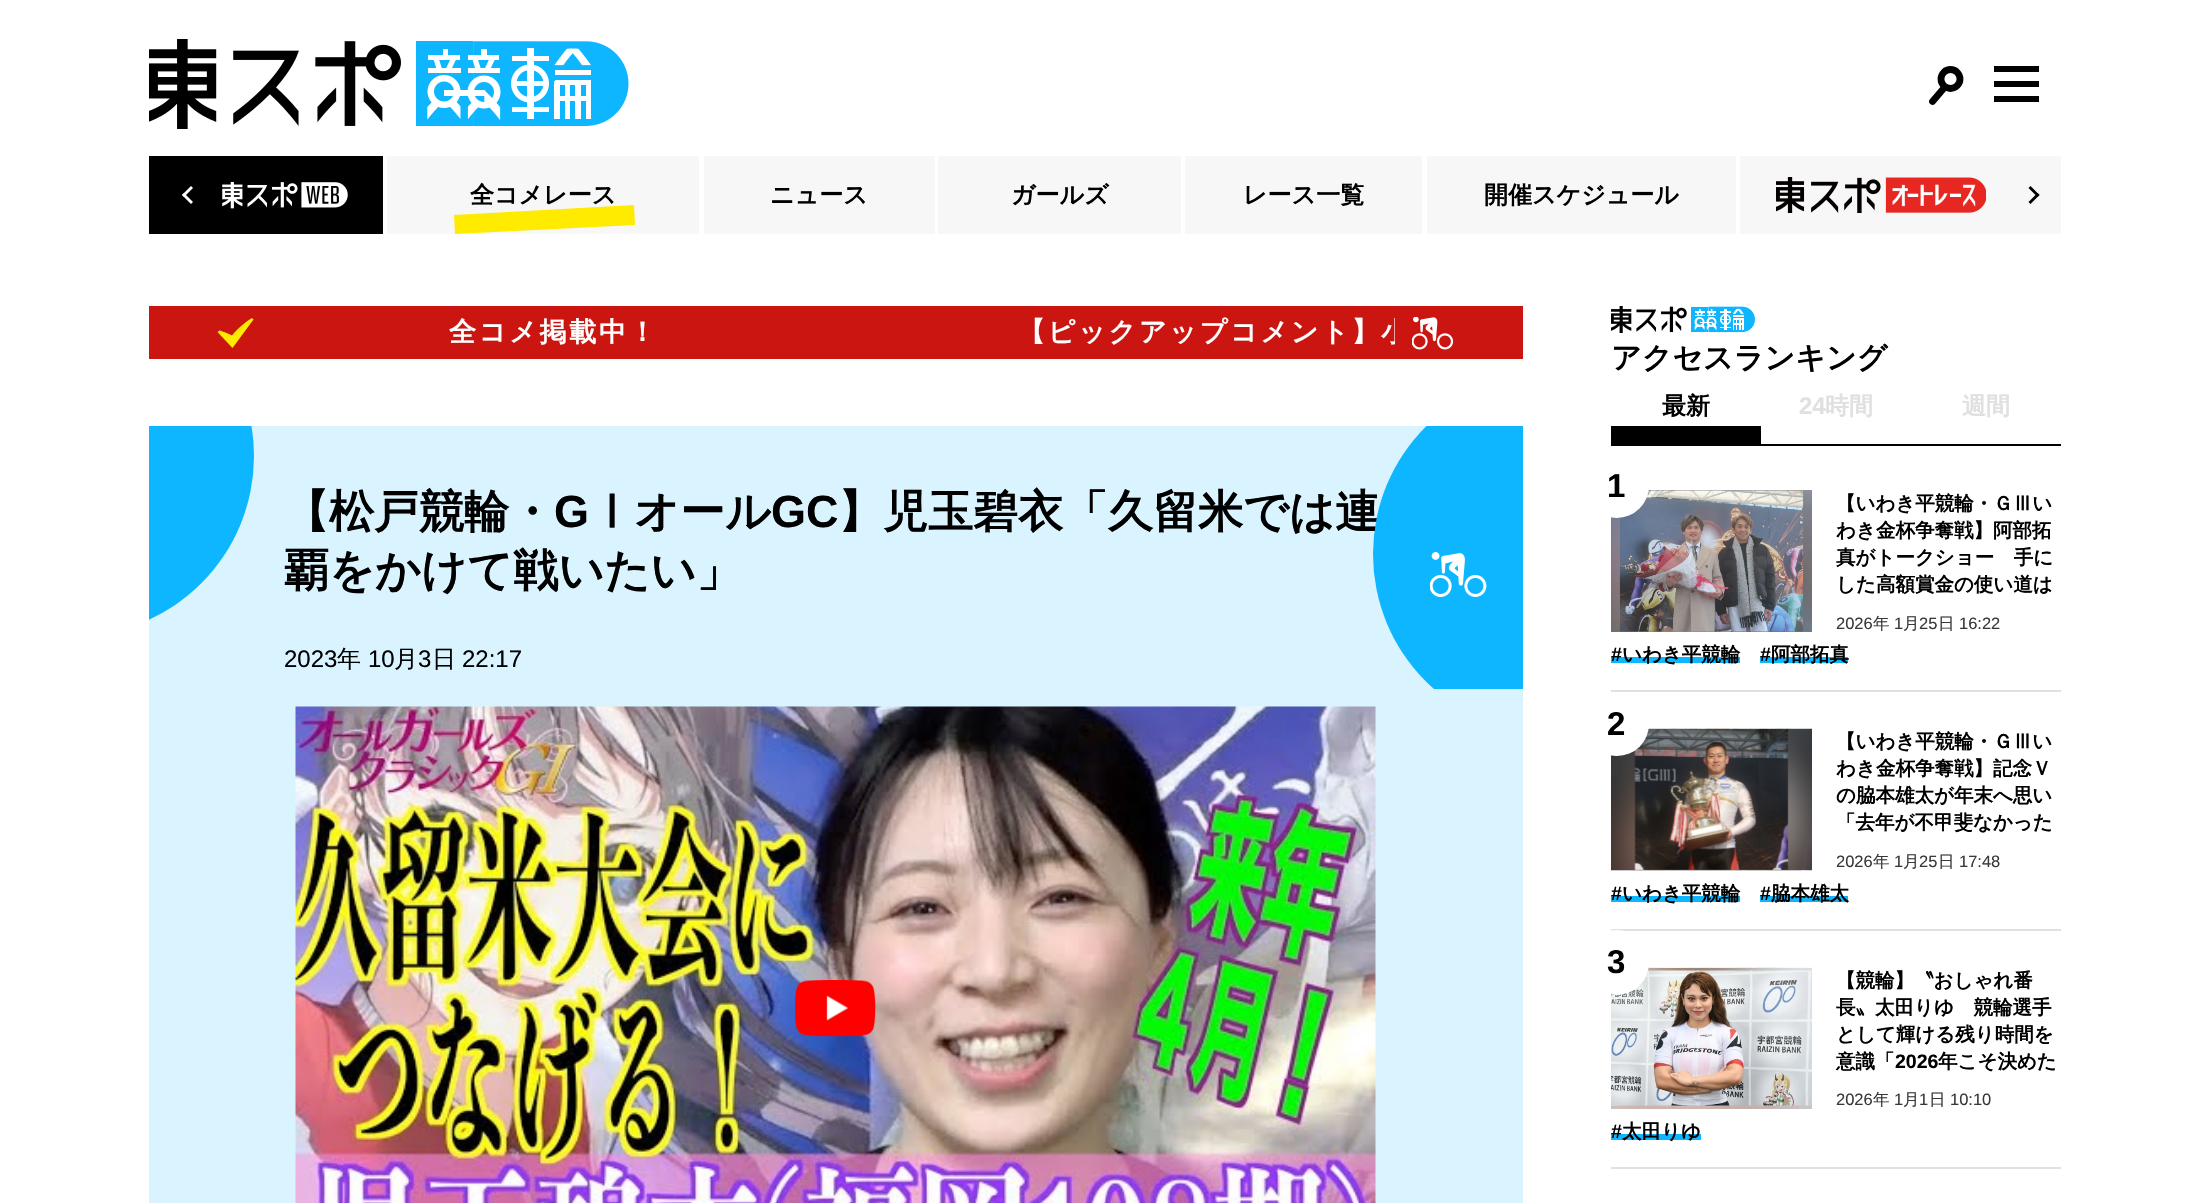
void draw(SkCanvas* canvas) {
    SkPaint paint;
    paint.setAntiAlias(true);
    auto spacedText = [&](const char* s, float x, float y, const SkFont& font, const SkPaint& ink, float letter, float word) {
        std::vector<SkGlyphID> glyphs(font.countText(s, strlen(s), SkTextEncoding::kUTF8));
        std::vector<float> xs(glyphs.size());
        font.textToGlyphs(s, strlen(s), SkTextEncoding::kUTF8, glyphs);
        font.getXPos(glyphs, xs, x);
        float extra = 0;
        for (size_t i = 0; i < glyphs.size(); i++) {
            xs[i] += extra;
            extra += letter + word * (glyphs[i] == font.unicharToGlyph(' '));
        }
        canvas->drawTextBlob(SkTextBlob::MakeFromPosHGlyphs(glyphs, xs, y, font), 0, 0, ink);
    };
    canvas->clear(0xFFFFFFFF);
    canvas->drawImageRect(SkImages::DeferredFromEncodedData(SkData::MakeFromFileName("img1.png")), SkRect::MakeXYWH(149, 39, 480, 90), SkSamplingOptions());
    paint.setStyle(SkPaint::kStroke_Style);
    paint.setStrokeWidth(6.8f);
    paint.setColor(0xFF000000);
    canvas->drawCircle(1950.5f, 79, 9.5f, paint);
    paint.setStrokeCap(SkPaint::kRound_Cap);
    canvas->drawPath(SkPathBuilder().moveTo(1944, 88).lineTo(1932.5f, 101.5f).detach(), paint);
    paint.setStyle(SkPaint::kFill_Style);
    canvas->drawRect(SkRect::MakeXYWH(1994, 66, 45, 6), paint);
    canvas->drawRect(SkRect::MakeXYWH(1994, 81, 45, 6), paint);
    canvas->drawRect(SkRect::MakeXYWH(1994, 96, 45, 6), paint);
    canvas->drawRect(SkRect::MakeXYWH(149, 156, 234, 78), paint);
    paint.setColor(0xFFFFFFFF);
    canvas->drawPath(SkPathBuilder().moveTo(182, 195).lineTo(191, 186).lineTo(193, 188).lineTo(184, 197).close().detach(), paint);
    canvas->drawPath(SkPathBuilder().moveTo(182, 195).lineTo(184, 193).lineTo(193, 202).lineTo(191, 204).close().detach(), paint);
    canvas->drawImageRect(SkImages::DeferredFromEncodedData(SkData::MakeFromFileName("img2.png")), SkRect::MakeXYWH(222, 182, 126, 27), SkSamplingOptions());
    paint.setColor(0xFFF7F7F7);
    canvas->drawRect(SkRect::MakeXYWH(387, 156, 312, 78), paint);
    SkFont font1(fontMgr->matchFamilyStyle("WenQuanYi Zen Hei", SkFontStyle::Bold()), 24);
    font1.setSubpixel(true);
    paint.setColor(0xFF000000);
    canvas->drawString("全コメレース", 470, 203, font1, paint);
    paint.setColor(0xFFFFEB00);
    canvas->drawPath(SkPathBuilder().moveTo(454, 215).lineTo(634, 205).lineTo(635, 225).lineTo(455, 234).close().detach(), paint);
    paint.setColor(0xFFF7F7F7);
    canvas->drawRect(SkRect::MakeXYWH(704, 156, 231, 78), paint);
    paint.setColor(0xFF000000);
    canvas->drawString("ニュース", 770, 203, font1, paint);
    paint.setColor(0xFFF7F7F7);
    canvas->drawRect(SkRect::MakeXYWH(938, 156, 243, 78), paint);
    paint.setColor(0xFF000000);
    canvas->drawString("ガールズ", 1011, 203, font1, paint);
    paint.setColor(0xFFF7F7F7);
    canvas->drawRect(SkRect::MakeXYWH(1185, 156, 237, 78), paint);
    paint.setColor(0xFF000000);
    canvas->drawString("レース一覧", 1243, 203, font1, paint);
    paint.setColor(0xFFF7F7F7);
    canvas->drawRect(SkRect::MakeXYWH(1427, 156, 309, 78), paint);
    paint.setColor(0xFF000000);
    canvas->drawString("開催スケジュール", 1484, 203, font1, paint);
    paint.setColor(0xFFF7F7F7);
    canvas->drawRect(SkRect::MakeXYWH(1740, 156, 321, 78), paint);
    canvas->drawImageRect(SkImages::DeferredFromEncodedData(SkData::MakeFromFileName("img3.png")), SkRect::MakeXYWH(1776, 177, 210, 36), SkSamplingOptions());
    paint.setColor(0xFF000000);
    canvas->drawPath(SkPathBuilder().moveTo(2030.5f, 186).lineTo(2039.5f, 195).lineTo(2037.5f, 197).lineTo(2028.5f, 188).close().detach(), paint);
    canvas->drawPath(SkPathBuilder().moveTo(2037.5f, 193).lineTo(2039.5f, 195).lineTo(2030.5f, 204).lineTo(2028.5f, 202).close().detach(), paint);
    paint.setColor(0xFFCA1511);
    canvas->drawRect(SkRect::MakeXYWH(149, 306, 1374, 53), paint);
    paint.setColor(0xFFFFEB00);
    canvas->drawPath(SkPathBuilder().moveTo(217.5f, 332).lineTo(219.5f, 330.5f).cubicTo(222, 331, 227, 333, 232, 335.5f).cubicTo(236.5f, 329.5f, 246, 321.5f, 252, 318).lineTo(253.5f, 319.5f).lineTo(232.5f, 348).close().detach(), paint);
    SkFont font2(fontMgr->matchFamilyStyle("WenQuanYi Zen Hei", SkFontStyle::Bold()), 27);
    font2.setSubpixel(true);
    paint.setColor(0xFFFFFFFF);
    spacedText("全コメ掲載中！", 449, 341, font2, paint, 2.75f, 0);
    canvas->save();
    canvas->clipRect(SkRect::MakeXYWH(269, 309, 1126, 45));
    spacedText("【ピックアップコメント】小", 1018, 341, font2, paint, 2.75f, 0);
    canvas->restore();
    canvas->drawImageRect(SkImages::DeferredFromEncodedData(SkData::MakeFromFileName("img4.png")), SkRect::MakeXYWH(1412, 317, 42, 33), SkSamplingOptions());
    paint.setColor(0xFFD9F4FF);
    canvas->drawRect(SkRect::MakeXYWH(149, 426, 1374, 777), paint);
    canvas->save();
    canvas->clipRect(SkRect::MakeXYWH(149, 426, 1374, 263));
    paint.setColor(0xFF0DB6FF);
    canvas->drawCircle(74, 456, 180, paint);
    canvas->restore();
    SkFont font3(fontMgr->matchFamilyStyle("WenQuanYi Zen Hei", SkFontStyle::Bold()), 45);
    font3.setSubpixel(true);
    paint.setColor(0xFF000000);
    canvas->drawString("【松戸競輪・", 284, 527, font3, paint);
    SkFont font4(fontMgr->matchFamilyStyle("Liberation Sans", SkFontStyle::Bold()), 45);
    font4.setSubpixel(true);
    canvas->drawString("G", 554, 527, font4, paint);
    canvas->drawString("Ⅰオール", 589, 527, font3, paint);
    canvas->drawString("GC", 771, 527, font4, paint);
    canvas->drawString("】児玉碧衣「久留米では連", 838, 527, font3, paint);
    canvas->drawString("覇をかけて戦いたい」", 284, 586, font3, paint);
    canvas->drawRect(SkRect::MakeXYWH(1611, 444, 450, 2), paint);
    canvas->drawRect(SkRect::MakeXYWH(1611, 426, 150, 18), paint);
    canvas->drawString("最新", 1662, 414, font1, paint);
    canvas->save();
    canvas->clipRect(SkRect::MakeXYWH(149, 426, 1374, 263));
    paint.setColor(0xFF0DB6FF);
    canvas->drawCircle(1553, 554, 180, paint);
    canvas->restore();
    canvas->drawImageRect(SkImages::DeferredFromEncodedData(SkData::MakeFromFileName("img5.png")), SkRect::MakeXYWH(1430, 552, 57, 45), SkSamplingOptions());
    SkFont font5(fontMgr->matchFamilyStyle("Liberation Sans", SkFontStyle::Normal()), 24);
    font5.setSubpixel(true);
    paint.setColor(0xFF000000);
    canvas->drawString("2023", 284, 667, font5, paint);
    SkFont font6(fontMgr->matchFamilyStyle("WenQuanYi Zen Hei", SkFontStyle(500, SkFontStyle::kNormal_Width, SkFontStyle::kUpright_Slant)), 24);
    font6.setSubpixel(true);
    canvas->drawString("年", 337, 667, font6, paint);
    canvas->drawString("10", 368, 667, font5, paint);
    canvas->drawString("月", 394, 667, font6, paint);
    canvas->drawString("3", 418, 667, font5, paint);
    canvas->drawString("日", 432, 667, font6, paint);
    canvas->drawString("22:17", 462, 667, font5, paint);
    canvas->drawImageRect(SkImages::DeferredFromEncodedData(SkData::MakeFromFileName("img6.png")), SkRect::MakeXYWH(295, 706, 1081, 497), SkSamplingOptions());
    canvas->drawImageRect(SkImages::DeferredFromEncodedData(SkData::MakeFromFileName("img7.png")), SkRect::MakeXYWH(795, 980, 81, 57), SkSamplingOptions());
    canvas->drawImageRect(SkImages::DeferredFromEncodedData(SkData::MakeFromFileName("img8.png")), SkRect::MakeXYWH(1611, 306, 144, 27), SkSamplingOptions());
    SkFont font7(fontMgr->matchFamilyStyle("WenQuanYi Zen Hei", SkFontStyle::Bold()), 30);
    font7.setSubpixel(true);
    canvas->drawString("アクセスランキング", 1611, 368, font7, paint);
    SkFont font8(fontMgr->matchFamilyStyle("Liberation Sans", SkFontStyle::Bold()), 24);
    font8.setSubpixel(true);
    paint.setColor(0xFFE0E0E0);
    canvas->drawString("24", 1799, 414, font8, paint);
    canvas->drawString("時間", 1825, 414, font1, paint);
    canvas->drawString("週間", 1962, 414, font1, paint);
    canvas->drawRect(SkRect::MakeXYWH(1611, 690, 450, 2), paint);
    canvas->drawImageRect(SkImages::DeferredFromEncodedData(SkData::MakeFromFileName("img9.png")), SkRect::MakeXYWH(1611, 490, 201, 142), SkSamplingOptions());
    canvas->drawImageRect(SkImages::DeferredFromEncodedData(SkData::MakeFromFileName("img10.png")), SkRect::MakeXYWH(1611, 490, 201, 142), SkSamplingOptions());
    canvas->drawImageRect(SkImages::DeferredFromEncodedData(SkData::MakeFromFileName("img11.png")), SkRect::MakeXYWH(1619, 490, 185, 142), SkSamplingOptions());
    paint.setColor(0xFFFFFFFF);
    canvas->drawCircle(1616.5f, 485.5f, 32.5f, paint);
    SkFont font9(fontMgr->matchFamilyStyle("Liberation Sans", SkFontStyle::Bold()), 33);
    font9.setSubpixel(true);
    paint.setColor(0xFF000000);
    canvas->drawString("1", 1607, 497, font9, paint);
    SkFont font10(fontMgr->matchFamilyStyle("WenQuanYi Zen Hei", SkFontStyle::Bold()), 19.5f);
    font10.setSubpixel(true);
    canvas->drawString("【いわき平競輪・ＧⅢい", 1836, 510, font10, paint);
    canvas->drawString("わき金杯争奪戦】阿部拓", 1836, 537, font10, paint);
    canvas->drawString("真がトークショー　手に", 1836, 564, font10, paint);
    canvas->drawString("した高額賞金の使い道は", 1836, 591, font10, paint);
    SkFont font11(fontMgr->matchFamilyStyle("Liberation Sans", SkFontStyle::Normal()), 16.5f);
    font11.setSubpixel(true);
    paint.setColor(0xFF393939);
    canvas->drawString("2026", 1836, 629, font11, paint);
    SkFont font12(fontMgr->matchFamilyStyle("WenQuanYi Zen Hei", SkFontStyle(500, SkFontStyle::kNormal_Width, SkFontStyle::kUpright_Slant)), 16.5f);
    font12.setSubpixel(true);
    canvas->drawString("年", 1873, 629, font12, paint);
    canvas->drawString("1", 1894, 629, font11, paint);
    canvas->drawString("月", 1903, 629, font12, paint);
    canvas->drawString("25", 1919, 629, font11, paint);
    canvas->drawString("日", 1938, 629, font12, paint);
    canvas->drawString("16:22", 1959, 629, font11, paint);
    paint.setColor(0xFF0DB6FF);
    canvas->drawRect(SkRect::MakeXYWH(1611, 657, 129, 6), paint);
    SkFont font13(fontMgr->matchFamilyStyle("Liberation Sans", SkFontStyle::Bold()), 19.5f);
    font13.setSubpixel(true);
    paint.setColor(0xFF000000);
    canvas->drawString("#", 1611, 661, font13, paint);
    canvas->drawString("いわき平競輪", 1622, 661, font10, paint);
    paint.setColor(0xFF0DB6FF);
    canvas->drawRect(SkRect::MakeXYWH(1760, 657, 88, 6), paint);
    paint.setColor(0xFF000000);
    canvas->drawString("#", 1760, 661, font13, paint);
    canvas->drawString("阿部拓真", 1771, 661, font10, paint);
    paint.setColor(0xFFE0E0E0);
    canvas->drawRect(SkRect::MakeXYWH(1611, 929, 450, 2), paint);
    canvas->drawImageRect(SkImages::DeferredFromEncodedData(SkData::MakeFromFileName("img12.png")), SkRect::MakeXYWH(1611, 728, 201, 143), SkSamplingOptions());
    canvas->drawImageRect(SkImages::DeferredFromEncodedData(SkData::MakeFromFileName("img13.png")), SkRect::MakeXYWH(1611, 729, 201, 141), SkSamplingOptions());
    canvas->drawImageRect(SkImages::DeferredFromEncodedData(SkData::MakeFromFileName("img14.png")), SkRect::MakeXYWH(1634, 729, 155, 141), SkSamplingOptions());
    paint.setColor(0xFFFFFFFF);
    canvas->drawRoundRect(SkRect::MakeXYWH(1584, 692, 65, 64), 32, 32, paint);
    paint.setColor(0xFF000000);
    canvas->drawString("2", 1607, 735, font9, paint);
    canvas->drawString("【いわき平競輪・ＧⅢい", 1836, 748, font10, paint);
    canvas->drawString("わき金杯争奪戦】記念Ｖ", 1836, 775, font10, paint);
    canvas->drawString("の脇本雄太が年末へ思い", 1836, 802, font10, paint);
    canvas->drawString("「去年が不甲斐なかった", 1836, 829, font10, paint);
    paint.setColor(0xFF393939);
    canvas->drawString("2026", 1836, 867, font11, paint);
    canvas->drawString("年", 1873, 867, font12, paint);
    canvas->drawString("1", 1894, 867, font11, paint);
    canvas->drawString("月", 1903, 867, font12, paint);
    canvas->drawString("25", 1919, 867, font11, paint);
    canvas->drawString("日", 1938, 867, font12, paint);
    canvas->drawString("17:48", 1959, 867, font11, paint);
    paint.setColor(0xFF0DB6FF);
    canvas->drawRect(SkRect::MakeXYWH(1611, 896, 129, 6), paint);
    paint.setColor(0xFF000000);
    canvas->drawString("#", 1611, 900, font13, paint);
    canvas->drawString("いわき平競輪", 1622, 900, font10, paint);
    paint.setColor(0xFF0DB6FF);
    canvas->drawRect(SkRect::MakeXYWH(1760, 896, 88, 6), paint);
    paint.setColor(0xFF000000);
    canvas->drawString("#", 1760, 900, font13, paint);
    canvas->drawString("脇本雄太", 1771, 900, font10, paint);
    paint.setColor(0xFFE0E0E0);
    canvas->drawRect(SkRect::MakeXYWH(1611, 1167, 450, 2), paint);
    canvas->drawImageRect(SkImages::DeferredFromEncodedData(SkData::MakeFromFileName("img15.png")), SkRect::MakeXYWH(1611, 967, 201, 142), SkSamplingOptions());
    canvas->drawImageRect(SkImages::DeferredFromEncodedData(SkData::MakeFromFileName("img16.png")), SkRect::MakeXYWH(1611, 968, 201, 141), SkSamplingOptions());
    canvas->drawImageRect(SkImages::DeferredFromEncodedData(SkData::MakeFromFileName("img17.png")), SkRect::MakeXYWH(1611, 970, 201, 136), SkSamplingOptions());
    paint.setColor(0xFFFFFFFF);
    canvas->drawCircle(1616.5f, 962.5f, 32.5f, paint);
    paint.setColor(0xFF000000);
    canvas->drawString("3", 1607, 973, font9, paint);
    canvas->drawString("【競輪】〝おしゃれ番", 1836, 987, font10, paint);
    canvas->drawString("長〟太田りゆ　競輪選手", 1836, 1014, font10, paint);
    canvas->drawString("として輝ける残り時間を", 1836, 1041, font10, paint);
    canvas->drawString("意識「", 1836, 1068, font10, paint);
    canvas->drawString("2026", 1895, 1068, font13, paint);
    canvas->drawString("年こそ決めた", 1938, 1068, font10, paint);
    paint.setColor(0xFF393939);
    canvas->drawString("2026", 1836, 1105, font11, paint);
    canvas->drawString("年", 1873, 1105, font12, paint);
    canvas->drawString("1", 1894, 1105, font11, paint);
    canvas->drawString("月", 1903, 1105, font12, paint);
    canvas->drawString("1", 1919, 1105, font11, paint);
    canvas->drawString("日", 1929, 1105, font12, paint);
    canvas->drawString("10:10", 1950, 1105, font11, paint);
    paint.setColor(0xFF0DB6FF);
    canvas->drawRect(SkRect::MakeXYWH(1611, 1134, 90, 6), paint);
    paint.setColor(0xFF000000);
    canvas->drawString("#", 1611, 1138, font13, paint);
    canvas->drawString("太田りゆ", 1622, 1138, font10, paint);
}
